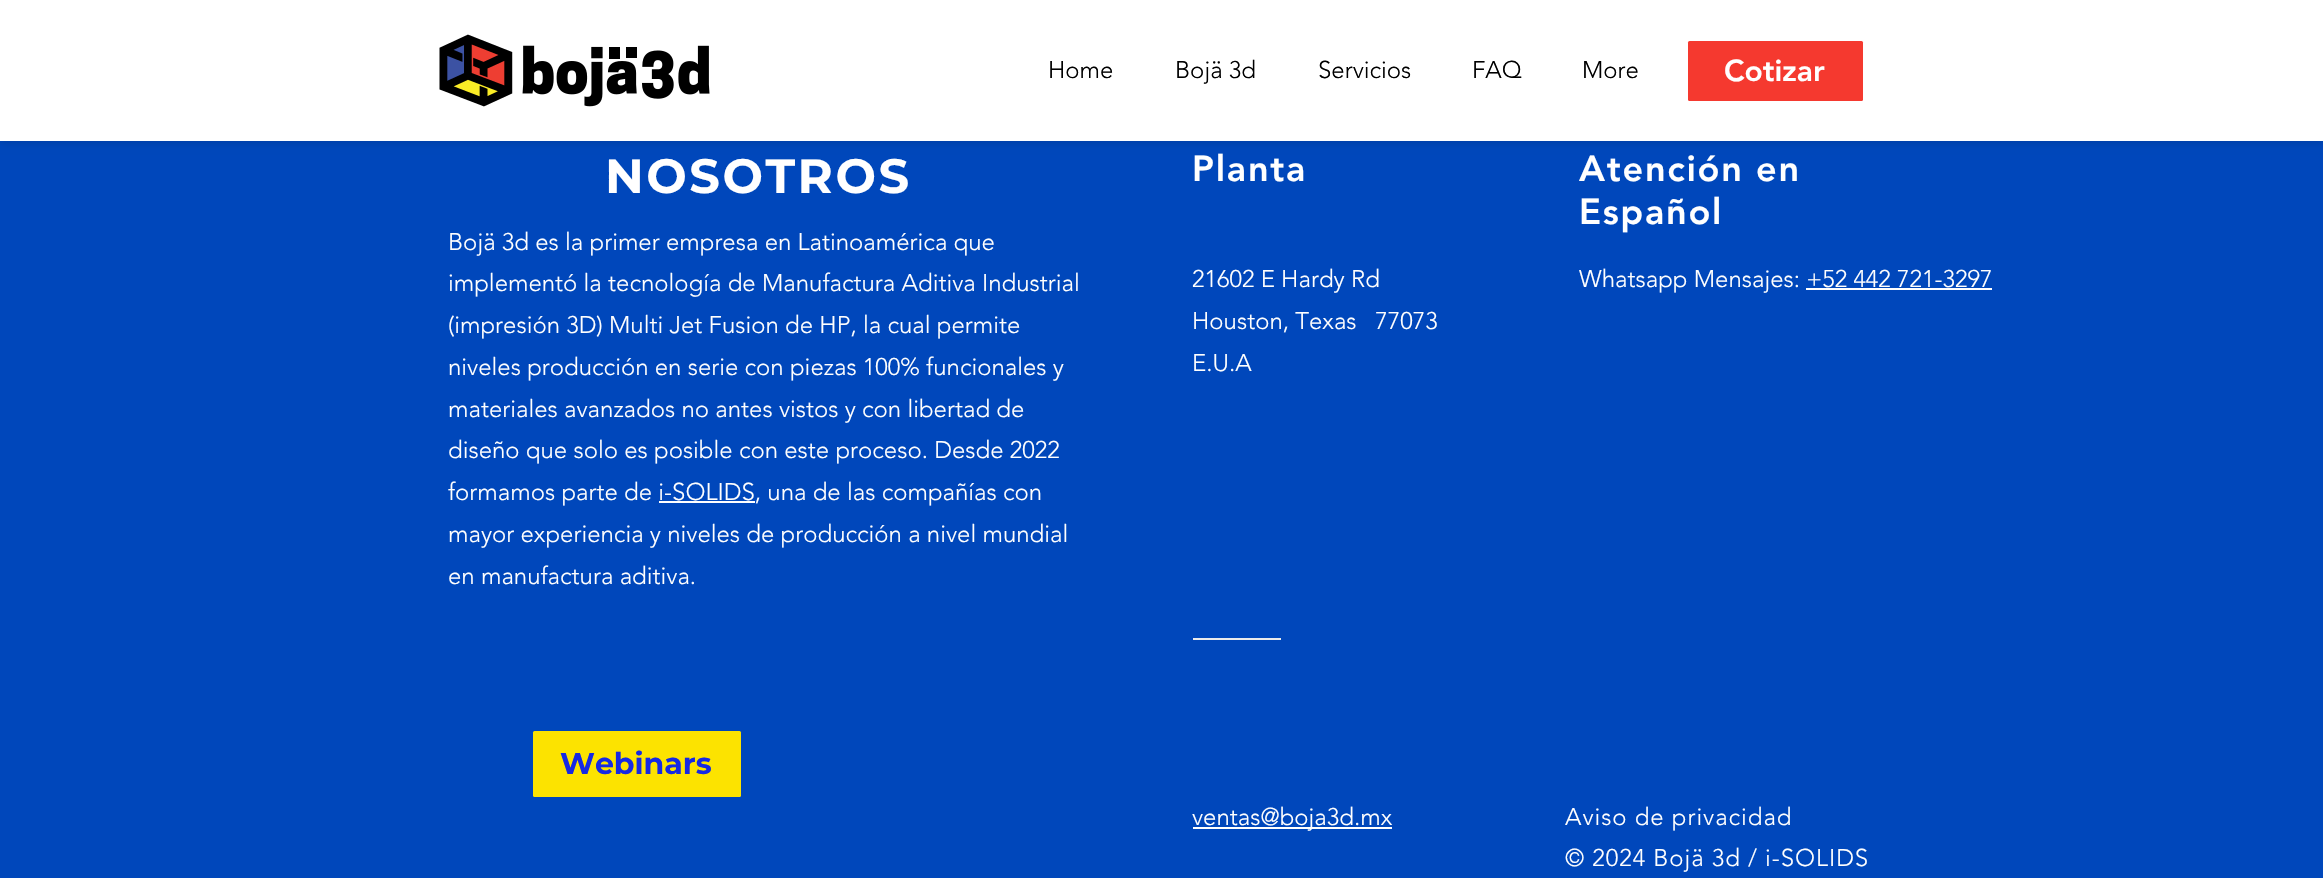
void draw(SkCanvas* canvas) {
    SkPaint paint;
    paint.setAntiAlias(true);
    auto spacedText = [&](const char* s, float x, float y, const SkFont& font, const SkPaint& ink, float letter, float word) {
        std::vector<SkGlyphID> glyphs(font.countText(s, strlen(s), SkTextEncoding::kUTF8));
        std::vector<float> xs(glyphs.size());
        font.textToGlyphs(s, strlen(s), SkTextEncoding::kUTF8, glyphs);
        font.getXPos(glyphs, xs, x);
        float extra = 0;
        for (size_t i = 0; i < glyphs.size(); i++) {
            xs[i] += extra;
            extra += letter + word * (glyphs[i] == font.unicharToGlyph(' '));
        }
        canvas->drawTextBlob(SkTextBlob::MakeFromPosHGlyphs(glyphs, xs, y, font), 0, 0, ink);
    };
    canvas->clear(0xFF0047BB);
    paint.setColor(0x1F000000);
    paint.setMaskFilter(SkMaskFilter::MakeBlur(kNormal_SkBlurStyle, 4));
    canvas->drawRect(SkRect::MakeXYWH(0, 2, 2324, 141), paint);
    paint.setMaskFilter(nullptr);
    paint.setColor(0xFFFFFFFF);
    canvas->drawRect(SkRect::MakeXYWH(0, 0, 2323, 141), paint);
    canvas->drawImageRect(SkImages::DeferredFromEncodedData(SkData::MakeFromFileName("img1.png")), SkRect::MakeXYWH(439, 34, 271, 73), SkSamplingOptions());
    SkFont font1(fontMgr->matchFamilyStyle("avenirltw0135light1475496", SkFontStyle(300, SkFontStyle::kNormal_Width, SkFontStyle::kUpright_Slant)), 24);
    font1.setSubpixel(true);
    paint.setColor(0xFF000000);
    canvas->drawString("Home", 1048, 78, font1, paint);
    canvas->drawString("Bojä 3d", 1175, 78, font1, paint);
    canvas->drawString("Servicios", 1318, 78, font1, paint);
    canvas->drawString("FAQ", 1472, 78, font1, paint);
    canvas->drawString("More", 1582, 78, font1, paint);
    paint.setColor(0xFFF5392F);
    canvas->drawRoundRect(SkRect::MakeXYWH(1688, 41, 175, 60), 1.5f, 1.5f, paint);
    SkFont font2(fontMgr->matchFamilyStyle("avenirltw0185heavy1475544", SkFontStyle(900, SkFontStyle::kNormal_Width, SkFontStyle::kUpright_Slant)), 30);
    font2.setSubpixel(true);
    paint.setColor(0xFFFFFFFF);
    canvas->drawString("Cotizar", 1724, 81, font2, paint);
    SkFont font3(fontMgr->matchFamilyStyle("Montserrat", SkFontStyle::Bold()), 48);
    font3.setSubpixel(true);
    spacedText("NOSOTROS", 605, 193, font3, paint, 2.5f, 0);
    canvas->drawString("Bojä 3d es la primer empresa en Latinoamérica que", 448, 250, font1, paint);
    canvas->drawString("implementó la tecnología de Manufactura Aditiva Industrial", 448, 291, font1, paint);
    canvas->drawString("(impresión 3D) Multi Jet Fusion de HP, la cual permite", 448, 333, font1, paint);
    canvas->drawString("niveles producción en serie con piezas 100% funcionales y", 448, 375, font1, paint);
    canvas->drawString("materiales avanzados no antes vistos y con libertad de", 448, 417, font1, paint);
    canvas->drawString("diseño que solo es posible con este proceso. Desde 2022", 448, 458, font1, paint);
    canvas->drawString("formamos parte de i-SOLIDS, una de las compañías con", 448, 500, font1, paint);
    canvas->drawRect(SkRect::MakeXYWH(659, 501, 96, 2), paint);
    canvas->drawString("mayor experiencia y niveles de producción a nivel mundial", 448, 542, font1, paint);
    canvas->drawString("en manufactura aditiva.", 448, 584, font1, paint);
    SkFont font4(fontMgr->matchFamilyStyle("avenirltw0185heavy1475544", SkFontStyle(900, SkFontStyle::kNormal_Width, SkFontStyle::kUpright_Slant)), 36);
    font4.setSubpixel(true);
    spacedText("Planta", 1192, 181, font4, paint, 1.75f, 0);
    spacedText("Atención en", 1579, 181, font4, paint, 1.75f, 0);
    spacedText("Español", 1579, 224, font4, paint, 1.75f, 0);
    canvas->drawString("21602 E Hardy Rd", 1192, 287, font1, paint);
    canvas->drawString("Houston, Texas   77073", 1192, 329, font1, paint);
    canvas->drawString("E.U.A", 1192, 371, font1, paint);
    canvas->drawString("Whatsapp Mensajes: +52 442 721-3297", 1579, 287, font1, paint);
    canvas->drawRect(SkRect::MakeXYWH(1806, 288, 186, 2), paint);
    paint.setColor(0xFFEBEBEB);
    canvas->drawRect(SkRect::MakeXYWH(1193, 638, 88, 2), paint);
    paint.setColor(0xFFFCE300);
    canvas->drawRoundRect(SkRect::MakeXYWH(533, 731, 208, 66), 1.5f, 1.5f, paint);
    SkFont font5(fontMgr->matchFamilyStyle("Montserrat", SkFontStyle::Bold()), 30);
    font5.setSubpixel(true);
    paint.setColor(0xFF1629E3);
    canvas->drawString("Webinars", 560, 774, font5, paint);
    paint.setColor(0xFFFFFFFF);
    canvas->drawRect(SkRect::MakeXYWH(1193, 827, 199, 2), paint);
    canvas->drawString("ventas@boja3d.mx", 1192, 825, font1, paint);
    spacedText("Aviso de privacidad", 1565, 825, font1, paint, 0.95f, 0);
    spacedText("© 2024 Bojä 3d / i-SOLIDS", 1565, 866, font1, paint, 0.95f, 0);
}
